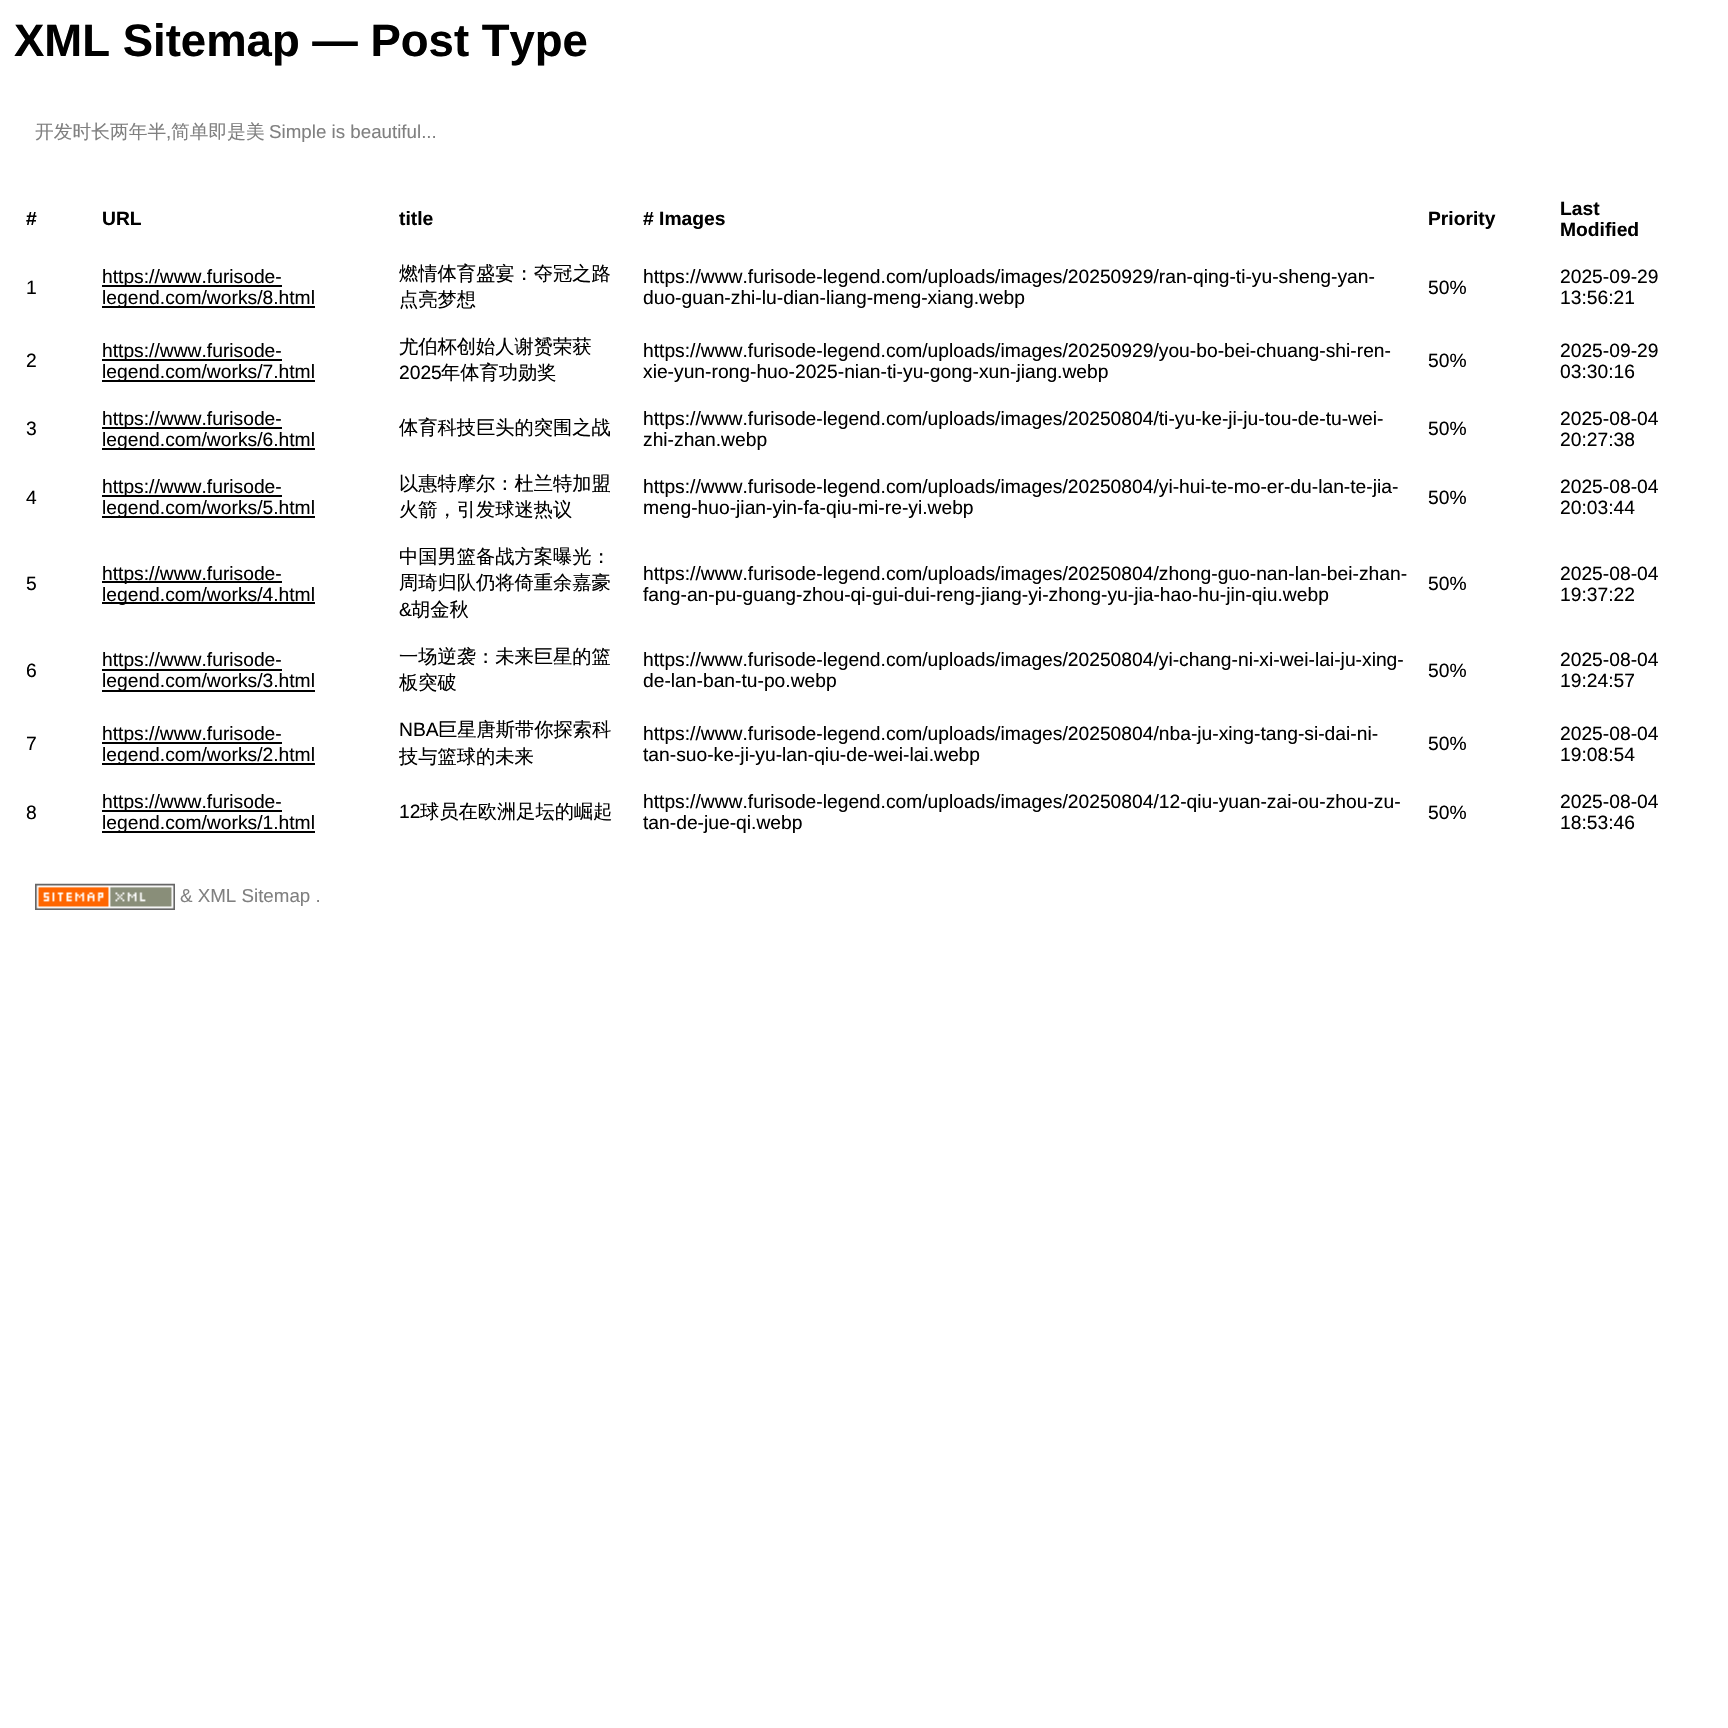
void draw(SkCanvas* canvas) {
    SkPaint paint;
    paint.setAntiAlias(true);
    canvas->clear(0xFFFFFFFF);
    SkFont font1(fontMgr->matchFamilyStyle("Liberation Sans", SkFontStyle::Bold()), 45.5f);
    font1.setSubpixel(true);
    paint.setColor(0xFF000000);
    canvas->drawString("XML Sitemap — Post Type", 14, 56, font1, paint);
    SkFont font2(fontMgr->matchFamilyStyle("WenQuanYi Zen Hei", SkFontStyle(500, SkFontStyle::kNormal_Width, SkFontStyle::kUpright_Slant)), 18.75f);
    font2.setSubpixel(true);
    paint.setColor(0xFF808080);
    canvas->drawString("开发时长两年半", 35, 138, font2, paint);
    SkFont font3(fontMgr->matchFamilyStyle("Liberation Sans", SkFontStyle::Normal()), 18.75f);
    font3.setSubpixel(true);
    canvas->drawString(",", 166, 138, font3, paint);
    canvas->drawString("简单即是美", 171, 138, font2, paint);
    canvas->drawString("Simple is beautiful...", 269, 138, font3, paint);
    SkFont font4(fontMgr->matchFamilyStyle("Liberation Sans", SkFontStyle::Bold()), 19.25f);
    font4.setSubpixel(true);
    paint.setColor(0xFF000000);
    canvas->drawString("#", 26, 225, font4, paint);
    canvas->drawString("URL", 102, 225, font4, paint);
    canvas->drawString("title", 399, 225, font4, paint);
    canvas->drawString("# Images", 643, 225, font4, paint);
    canvas->drawString("Priority", 1428, 225, font4, paint);
    canvas->drawString("Last", 1560, 215, font4, paint);
    canvas->drawString("Modified", 1560, 236, font4, paint);
    SkFont font5(fontMgr->matchFamilyStyle("Liberation Sans", SkFontStyle::Normal()), 19.25f);
    font5.setSubpixel(true);
    canvas->drawString("1", 26, 294, font5, paint);
    canvas->drawRect(SkRect::MakeXYWH(102, 285, 180, 2), paint);
    canvas->drawString("https://www.furisode-", 102, 283, font5, paint);
    canvas->drawRect(SkRect::MakeXYWH(102, 306, 213, 2), paint);
    canvas->drawString("legend.com/works/8.html", 102, 304, font5, paint);
    SkFont font6(fontMgr->matchFamilyStyle("WenQuanYi Zen Hei", SkFontStyle(500, SkFontStyle::kNormal_Width, SkFontStyle::kUpright_Slant)), 19.25f);
    font6.setSubpixel(true);
    canvas->drawString("燃情体育盛宴：夺冠之路", 399, 280, font6, paint);
    canvas->drawString("点亮梦想", 399, 306, font6, paint);
    canvas->drawString("https://www.furisode-legend.com/uploads/images/20250929/ran-qing-ti-yu-sheng-yan-", 643, 283, font5, paint);
    canvas->drawString("duo-guan-zhi-lu-dian-liang-meng-xiang.webp", 643, 304, font5, paint);
    canvas->drawString("50%", 1428, 294, font5, paint);
    canvas->drawString("2025-09-29", 1560, 283, font5, paint);
    canvas->drawString("13:56:21", 1560, 304, font5, paint);
    canvas->drawString("2", 26, 367, font5, paint);
    canvas->drawRect(SkRect::MakeXYWH(102, 359, 180, 2), paint);
    canvas->drawString("https://www.furisode-", 102, 357, font5, paint);
    canvas->drawRect(SkRect::MakeXYWH(102, 380, 213, 2), paint);
    canvas->drawString("legend.com/works/7.html", 102, 378, font5, paint);
    canvas->drawString("尤伯杯创始人谢赟荣获", 399, 353, font6, paint);
    canvas->drawString("2025", 399, 379, font5, paint);
    canvas->drawString("年体育功勋奖", 441, 379, font6, paint);
    canvas->drawString("https://www.furisode-legend.com/uploads/images/20250929/you-bo-bei-chuang-shi-ren-", 643, 357, font5, paint);
    canvas->drawString("xie-yun-rong-huo-2025-nian-ti-yu-gong-xun-jiang.webp", 643, 378, font5, paint);
    canvas->drawString("50%", 1428, 367, font5, paint);
    canvas->drawString("2025-09-29", 1560, 357, font5, paint);
    canvas->drawString("03:30:16", 1560, 378, font5, paint);
    canvas->drawString("3", 26, 435, font5, paint);
    canvas->drawRect(SkRect::MakeXYWH(102, 427, 180, 2), paint);
    canvas->drawString("https://www.furisode-", 102, 425, font5, paint);
    canvas->drawRect(SkRect::MakeXYWH(102, 448, 213, 2), paint);
    canvas->drawString("legend.com/works/6.html", 102, 446, font5, paint);
    canvas->drawString("体育科技巨头的突围之战", 399, 434, font6, paint);
    canvas->drawString("https://www.furisode-legend.com/uploads/images/20250804/ti-yu-ke-ji-ju-tou-de-tu-wei-", 643, 425, font5, paint);
    canvas->drawString("zhi-zhan.webp", 643, 446, font5, paint);
    canvas->drawString("50%", 1428, 435, font5, paint);
    canvas->drawString("2025-08-04", 1560, 425, font5, paint);
    canvas->drawString("20:27:38", 1560, 446, font5, paint);
    canvas->drawString("4", 26, 504, font5, paint);
    canvas->drawRect(SkRect::MakeXYWH(102, 495, 180, 2), paint);
    canvas->drawString("https://www.furisode-", 102, 493, font5, paint);
    canvas->drawRect(SkRect::MakeXYWH(102, 516, 213, 2), paint);
    canvas->drawString("legend.com/works/5.html", 102, 514, font5, paint);
    canvas->drawString("以惠特摩尔：杜兰特加盟", 399, 490, font6, paint);
    canvas->drawString("火箭，引发球迷热议", 399, 516, font6, paint);
    canvas->drawString("https://www.furisode-legend.com/uploads/images/20250804/yi-hui-te-mo-er-du-lan-te-jia-", 643, 493, font5, paint);
    canvas->drawString("meng-huo-jian-yin-fa-qiu-mi-re-yi.webp", 643, 514, font5, paint);
    canvas->drawString("50%", 1428, 504, font5, paint);
    canvas->drawString("2025-08-04", 1560, 493, font5, paint);
    canvas->drawString("20:03:44", 1560, 514, font5, paint);
    canvas->drawString("5", 26, 590, font5, paint);
    canvas->drawRect(SkRect::MakeXYWH(102, 581, 180, 2), paint);
    canvas->drawString("https://www.furisode-", 102, 580, font5, paint);
    canvas->drawRect(SkRect::MakeXYWH(102, 602, 213, 2), paint);
    canvas->drawString("legend.com/works/4.html", 102, 601, font5, paint);
    canvas->drawString("中国男篮备战方案曝光：", 399, 563, font6, paint);
    canvas->drawString("周琦归队仍将倚重余嘉豪", 399, 589, font6, paint);
    canvas->drawString("&", 399, 616, font5, paint);
    canvas->drawString("胡金秋", 411, 616, font6, paint);
    canvas->drawString("https://www.furisode-legend.com/uploads/images/20250804/zhong-guo-nan-lan-bei-zhan-", 643, 580, font5, paint);
    canvas->drawString("fang-an-pu-guang-zhou-qi-gui-dui-reng-jiang-yi-zhong-yu-jia-hao-hu-jin-qiu.webp", 643, 601, font5, paint);
    canvas->drawString("50%", 1428, 590, font5, paint);
    canvas->drawString("2025-08-04", 1560, 580, font5, paint);
    canvas->drawString("19:37:22", 1560, 601, font5, paint);
    canvas->drawString("6", 26, 677, font5, paint);
    canvas->drawRect(SkRect::MakeXYWH(102, 669, 180, 2), paint);
    canvas->drawString("https://www.furisode-", 102, 666, font5, paint);
    canvas->drawRect(SkRect::MakeXYWH(102, 690, 213, 2), paint);
    canvas->drawString("legend.com/works/3.html", 102, 687, font5, paint);
    canvas->drawString("一场逆袭：未来巨星的篮", 399, 663, font6, paint);
    canvas->drawString("板突破", 399, 689, font6, paint);
    canvas->drawString("https://www.furisode-legend.com/uploads/images/20250804/yi-chang-ni-xi-wei-lai-ju-xing-", 643, 666, font5, paint);
    canvas->drawString("de-lan-ban-tu-po.webp", 643, 687, font5, paint);
    canvas->drawString("50%", 1428, 677, font5, paint);
    canvas->drawString("2025-08-04", 1560, 666, font5, paint);
    canvas->drawString("19:24:57", 1560, 687, font5, paint);
    canvas->drawString("7", 26, 750, font5, paint);
    canvas->drawRect(SkRect::MakeXYWH(102, 742, 180, 2), paint);
    canvas->drawString("https://www.furisode-", 102, 740, font5, paint);
    canvas->drawRect(SkRect::MakeXYWH(102, 763, 213, 2), paint);
    canvas->drawString("legend.com/works/2.html", 102, 761, font5, paint);
    canvas->drawString("NBA", 399, 736, font5, paint);
    canvas->drawString("巨星唐斯带你探索科", 438, 736, font6, paint);
    canvas->drawString("技与篮球的未来", 399, 763, font6, paint);
    canvas->drawString("https://www.furisode-legend.com/uploads/images/20250804/nba-ju-xing-tang-si-dai-ni-", 643, 740, font5, paint);
    canvas->drawString("tan-suo-ke-ji-yu-lan-qiu-de-wei-lai.webp", 643, 761, font5, paint);
    canvas->drawString("50%", 1428, 750, font5, paint);
    canvas->drawString("2025-08-04", 1560, 740, font5, paint);
    canvas->drawString("19:08:54", 1560, 761, font5, paint);
    canvas->drawString("8", 26, 819, font5, paint);
    canvas->drawRect(SkRect::MakeXYWH(102, 810, 180, 2), paint);
    canvas->drawString("https://www.furisode-", 102, 808, font5, paint);
    canvas->drawRect(SkRect::MakeXYWH(102, 831, 213, 2), paint);
    canvas->drawString("legend.com/works/1.html", 102, 829, font5, paint);
    canvas->drawString("12", 399, 818, font5, paint);
    canvas->drawString("球员在欧洲足坛的崛起", 420, 818, font6, paint);
    canvas->drawString("https://www.furisode-legend.com/uploads/images/20250804/12-qiu-yuan-zai-ou-zhou-zu-", 643, 808, font5, paint);
    canvas->drawString("tan-de-jue-qi.webp", 643, 829, font5, paint);
    canvas->drawString("50%", 1428, 819, font5, paint);
    canvas->drawString("2025-08-04", 1560, 808, font5, paint);
    canvas->drawString("18:53:46", 1560, 829, font5, paint);
    canvas->drawImageRect(SkImages::DeferredFromEncodedData(SkData::MakeFromFileName("img1.png")), SkRect::MakeXYWH(35, 883, 140, 27), SkSamplingOptions());
    paint.setColor(0xFF808080);
    canvas->drawString("& XML Sitemap .", 180, 902, font3, paint);
}
